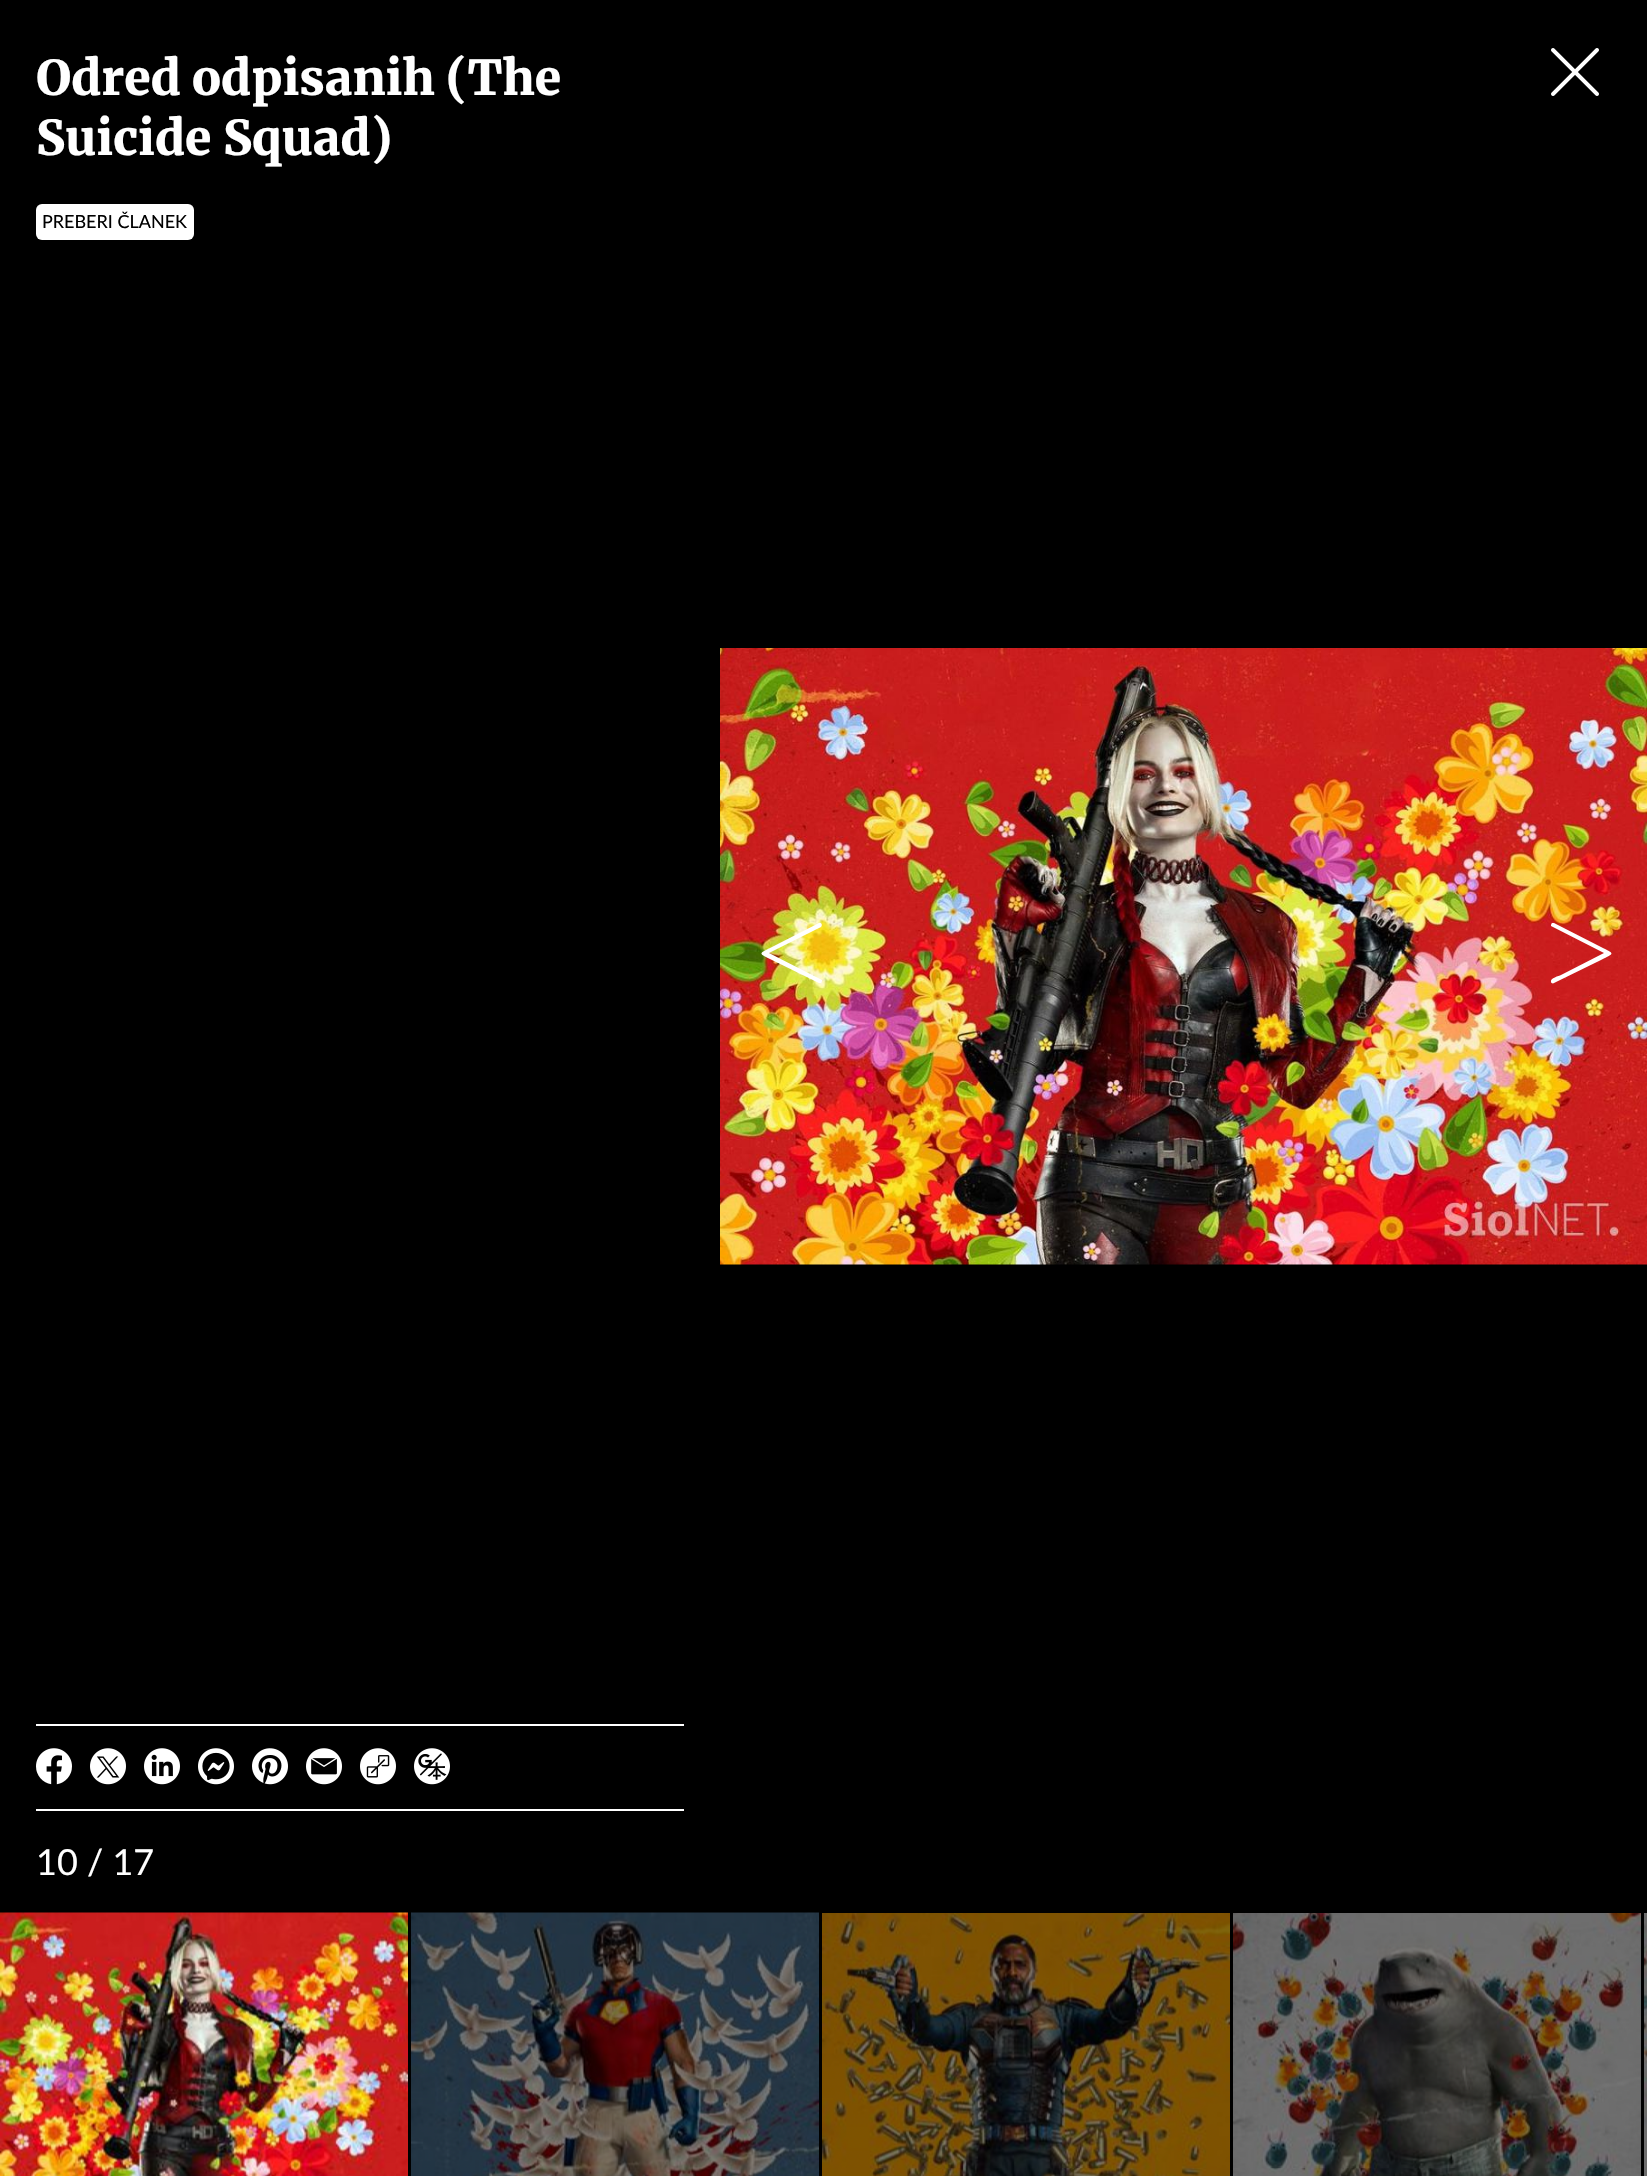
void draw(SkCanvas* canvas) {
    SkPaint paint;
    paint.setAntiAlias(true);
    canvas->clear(0xFF000000);
    SkFont font1(fontMgr->matchFamilyStyle("Merriweather", SkFontStyle(900, SkFontStyle::kNormal_Width, SkFontStyle::kUpright_Slant)), 48);
    font1.setSubpixel(true);
    paint.setColor(0xFFFFFFFF);
    canvas->drawString("Odred odpisanih (The", 36, 95, font1, paint);
    canvas->drawString("Suicide Squad)", 36, 155, font1, paint);
    canvas->drawRoundRect(SkRect::MakeXYWH(36, 204, 158, 36), 6, 6, paint);
    SkFont font2(fontMgr->matchFamilyStyle("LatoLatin", SkFontStyle::Normal()), 18);
    font2.setSubpixel(true);
    paint.setColor(0xFF000000);
    canvas->drawString("PREBERI ČLANEK", 42, 228, font2, paint);
    paint.setColor(0xFFFFFFFF);
    canvas->drawRect(SkRect::MakeXYWH(36, 1724, 648, 2), paint);
    canvas->drawRect(SkRect::MakeXYWH(36, 1809, 648, 2), paint);
    canvas->drawImageRect(SkImages::DeferredFromEncodedData(SkData::MakeFromFileName("img1.png")), SkRect::MakeXYWH(36, 1748, 36, 37), SkSamplingOptions());
    canvas->drawImageRect(SkImages::DeferredFromEncodedData(SkData::MakeFromFileName("img2.png")), SkRect::MakeXYWH(90, 1748, 36, 37), SkSamplingOptions());
    canvas->drawImageRect(SkImages::DeferredFromEncodedData(SkData::MakeFromFileName("img3.png")), SkRect::MakeXYWH(144, 1748, 36, 37), SkSamplingOptions());
    canvas->drawImageRect(SkImages::DeferredFromEncodedData(SkData::MakeFromFileName("img4.png")), SkRect::MakeXYWH(198, 1748, 36, 37), SkSamplingOptions());
    canvas->drawImageRect(SkImages::DeferredFromEncodedData(SkData::MakeFromFileName("img5.png")), SkRect::MakeXYWH(252, 1748, 36, 37), SkSamplingOptions());
    canvas->drawImageRect(SkImages::DeferredFromEncodedData(SkData::MakeFromFileName("img6.png")), SkRect::MakeXYWH(306, 1748, 36, 37), SkSamplingOptions());
    canvas->drawImageRect(SkImages::DeferredFromEncodedData(SkData::MakeFromFileName("img7.png")), SkRect::MakeXYWH(360, 1748, 36, 37), SkSamplingOptions());
    canvas->drawImageRect(SkImages::DeferredFromEncodedData(SkData::MakeFromFileName("img8.png")), SkRect::MakeXYWH(414, 1748, 36, 37), SkSamplingOptions());
    canvas->drawImageRect(SkImages::DeferredFromEncodedData(SkData::MakeFromFileName("img9.png")), SkRect::MakeXYWH(1551, 48, 48, 48), SkSamplingOptions());
    canvas->drawImageRect(SkImages::DeferredFromEncodedData(SkData::MakeFromFileName("img15.png")), SkRect::MakeXYWH(720, 648, 927, 617), SkSamplingOptions());
    canvas->drawPath(SkPathBuilder().moveTo(819, 923).lineTo(772, 947).cubicTo(758, 954, 758, 953, 772, 960).lineTo(819, 983).lineTo(821, 983).cubicTo(822, 982, 822, 981, 822, 980).lineTo(769, 953).lineTo(821, 927).cubicTo(823, 925, 821, 922, 819, 923).close().detach(), paint);
    canvas->drawPath(SkPathBuilder().moveTo(1554, 983).lineTo(1601, 960).cubicTo(1615, 953, 1615, 954, 1601, 947).lineTo(1554, 923).lineTo(1552, 923).cubicTo(1551, 924, 1551, 925, 1551, 926).lineTo(1604, 953).lineTo(1561, 975).cubicTo(1559, 976, 1550, 978, 1551, 982).cubicTo(1551, 983, 1553, 984, 1554, 983).close().detach(), paint);
    canvas->drawImageRect(SkImages::DeferredFromEncodedData(SkData::MakeFromFileName("img10.png")), SkRect::MakeXYWH(0, 1912, 408, 264), SkSamplingOptions());
    canvas->drawImageRect(SkImages::DeferredFromEncodedData(SkData::MakeFromFileName("img11.png")), SkRect::MakeXYWH(411, 1912, 408, 264), SkSamplingOptions());
    canvas->drawImageRect(SkImages::DeferredFromEncodedData(SkData::MakeFromFileName("img12.png")), SkRect::MakeXYWH(822, 1913, 408, 263), SkSamplingOptions());
    canvas->drawImageRect(SkImages::DeferredFromEncodedData(SkData::MakeFromFileName("img13.png")), SkRect::MakeXYWH(1233, 1913, 408, 263), SkSamplingOptions());
    canvas->drawImageRect(SkImages::DeferredFromEncodedData(SkData::MakeFromFileName("img14.png")), SkRect::MakeXYWH(1644, 1913, 3, 263), SkSamplingOptions());
    SkFont font3(fontMgr->matchFamilyStyle("LatoLatin", SkFontStyle::Normal()), 36);
    font3.setSubpixel(true);
    canvas->drawString("10 / 17", 36, 1875, font3, paint);
}
